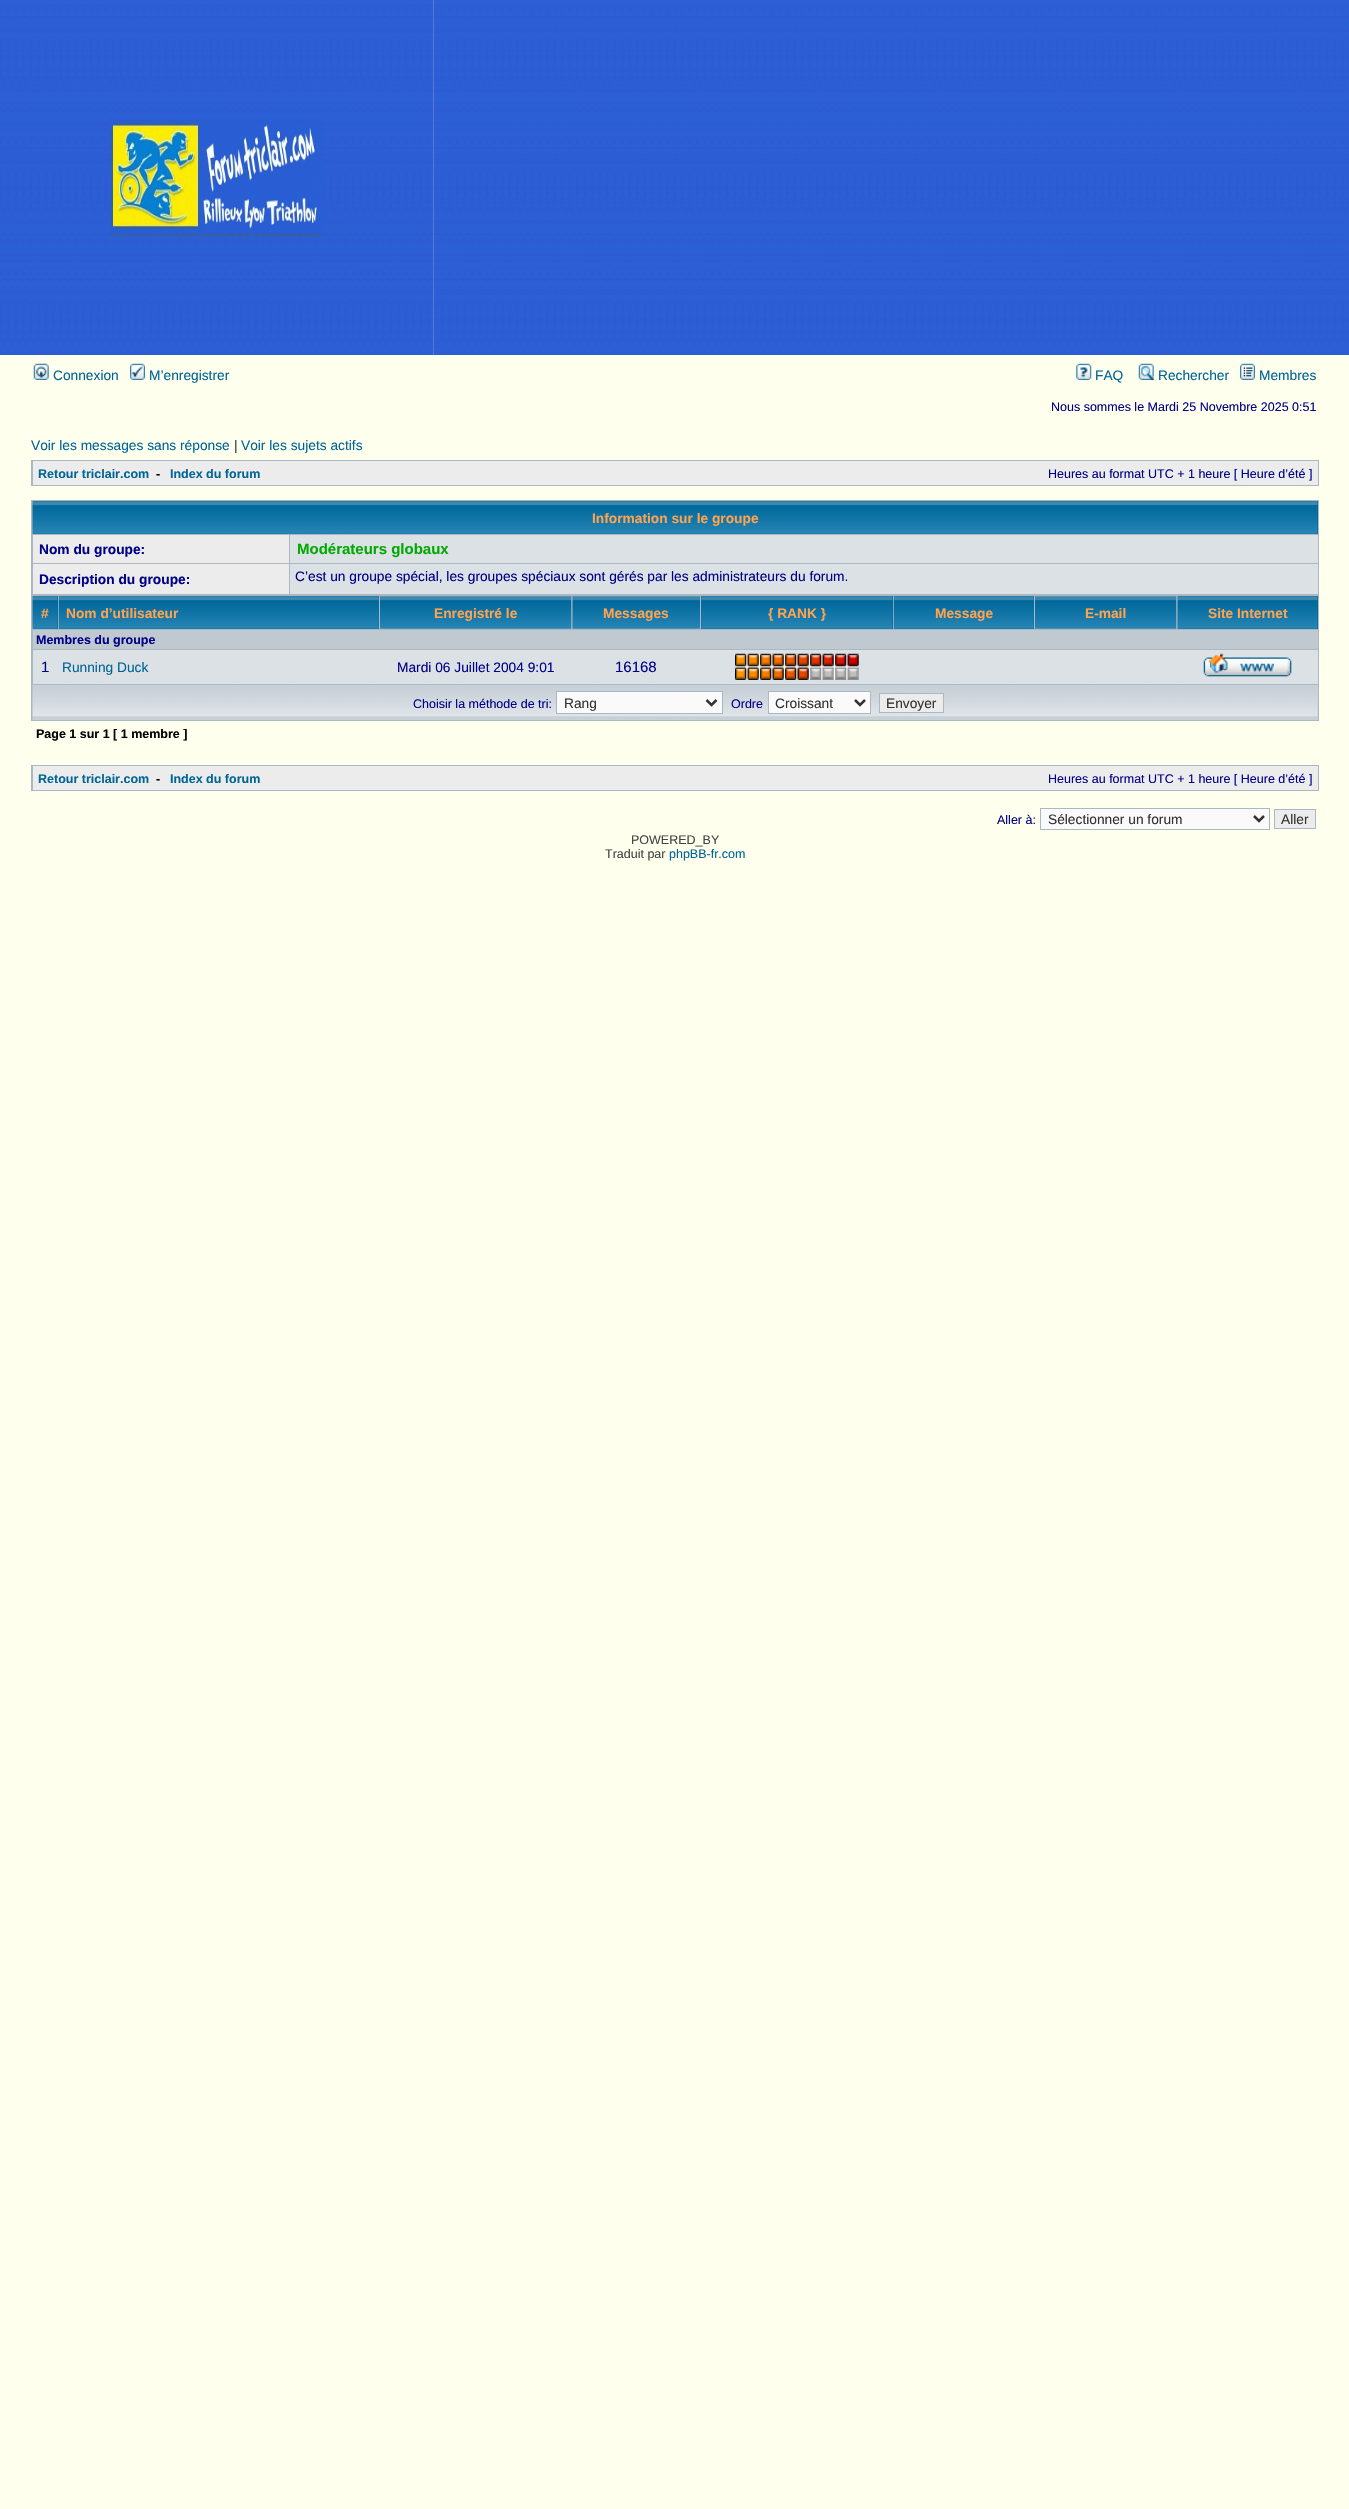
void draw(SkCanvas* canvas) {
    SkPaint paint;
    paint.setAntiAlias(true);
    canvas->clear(0xFFFFFFEE);
    canvas->drawImageRect(SkImages::DeferredFromEncodedData(SkData::MakeFromFileName("img1.png")), SkRect::MakeXYWH(0, 0, 434, 355), SkSamplingOptions());
    canvas->drawImageRect(SkImages::DeferredFromEncodedData(SkData::MakeFromFileName("img2.png")), SkRect::MakeXYWH(110, 119, 213, 118), SkSamplingOptions());
    canvas->drawImageRect(SkImages::DeferredFromEncodedData(SkData::MakeFromFileName("img3.png")), SkRect::MakeXYWH(433, 0, 916, 355), SkSamplingOptions());
    canvas->drawImageRect(SkImages::DeferredFromEncodedData(SkData::MakeFromFileName("img4.png")), SkRect::MakeXYWH(33, 363, 16, 17), SkSamplingOptions());
    SkFont font1(fontMgr->matchFamilyStyle("Liberation Sans", SkFontStyle::Normal()), 13.75f);
    font1.setSubpixel(true);
    paint.setColor(0xFF006597);
    canvas->drawString("Connexion", 53, 380, font1, paint);
    canvas->drawImageRect(SkImages::DeferredFromEncodedData(SkData::MakeFromFileName("img5.png")), SkRect::MakeXYWH(130, 363, 15, 17), SkSamplingOptions());
    canvas->drawString("M’enregistrer", 149, 380, font1, paint);
    canvas->drawImageRect(SkImages::DeferredFromEncodedData(SkData::MakeFromFileName("img6.png")), SkRect::MakeXYWH(1076, 363, 16, 17), SkSamplingOptions());
    canvas->drawString("FAQ", 1095, 380, font1, paint);
    canvas->drawImageRect(SkImages::DeferredFromEncodedData(SkData::MakeFromFileName("img7.png")), SkRect::MakeXYWH(1138, 363, 16, 17), SkSamplingOptions());
    canvas->drawString("Rechercher", 1158, 380, font1, paint);
    canvas->drawImageRect(SkImages::DeferredFromEncodedData(SkData::MakeFromFileName("img8.png")), SkRect::MakeXYWH(1240, 363, 15, 17), SkSamplingOptions());
    canvas->drawString("Membres", 1259, 380, font1, paint);
    SkFont font2(fontMgr->matchFamilyStyle("Liberation Sans", SkFontStyle::Normal()), 12.5f);
    font2.setSubpixel(true);
    paint.setColor(0xFF000088);
    canvas->drawString("Nous sommes le Mardi 25 Novembre 2025 0:51", 1051, 411, font2, paint);
    paint.setColor(0xFF006597);
    canvas->drawString("Voir les messages sans réponse", 31, 450, font1, paint);
    paint.setColor(0xFF323D4F);
    canvas->drawString("|", 234, 450, font1, paint);
    paint.setColor(0xFF006597);
    canvas->drawString("Voir les sujets actifs", 241, 450, font1, paint);
    paint.setColor(0xFFA9B8C2);
    canvas->drawRect(SkRect::MakeXYWH(31, 460, 1288, 26), paint);
    paint.setColor(0xFFECECEC);
    canvas->drawRect(SkRect::MakeXYWH(33, 461, 1285, 24), paint);
    SkFont font3(fontMgr->matchFamilyStyle("Liberation Sans", SkFontStyle::Bold()), 12.5f);
    font3.setSubpixel(true);
    paint.setColor(0xFF006597);
    canvas->drawString("Retour triclair.com", 38, 478, font3, paint);
    paint.setColor(0xFF000000);
    canvas->drawString("-", 156, 478, font3, paint);
    paint.setColor(0xFF006597);
    canvas->drawString("Index du forum", 170, 478, font3, paint);
    paint.setColor(0xFF000088);
    canvas->drawString("Heures au format UTC + 1 heure [ Heure d’été ]", 1048, 478, font2, paint);
    paint.setColor(0xFFA9B8C2);
    canvas->drawRect(SkRect::MakeXYWH(31, 500, 1288, 221), paint);
    paint.setColor(0xFF006699);
    canvas->drawRect(SkRect::MakeXYWH(33, 501, 1285, 33), paint);
    canvas->drawImageRect(SkImages::DeferredFromEncodedData(SkData::MakeFromFileName("img9.png")), SkRect::MakeXYWH(32, 501, 1286, 33), SkSamplingOptions());
    SkFont font4(fontMgr->matchFamilyStyle("Liberation Sans", SkFontStyle::Bold()), 13.75f);
    font4.setSubpixel(true);
    paint.setColor(0xFFFFA34F);
    canvas->drawString("Information sur le groupe", 592, 523, font4, paint);
    paint.setColor(0xFFECECEC);
    canvas->drawRect(SkRect::MakeXYWH(33, 535, 256, 28), paint);
    paint.setColor(0xFF000088);
    canvas->drawString("Nom du groupe:", 39, 554, font4, paint);
    paint.setColor(0xFFDCE1E5);
    canvas->drawRect(SkRect::MakeXYWH(290, 535, 1028, 28), paint);
    SkFont font5(fontMgr->matchFamilyStyle("Liberation Sans", SkFontStyle::Bold()), 15);
    font5.setSubpixel(true);
    paint.setColor(0xFF00AA00);
    canvas->drawString("Modérateurs globaux", 297, 554, font5, paint);
    paint.setColor(0xFFECECEC);
    canvas->drawRect(SkRect::MakeXYWH(33, 564, 256, 30), paint);
    paint.setColor(0xFF000088);
    canvas->drawString("Description du groupe:", 39, 584, font4, paint);
    paint.setColor(0xFFDCE1E5);
    canvas->drawRect(SkRect::MakeXYWH(290, 564, 1028, 30), paint);
    paint.setColor(0xFF000088);
    canvas->drawString("C’est un groupe spécial, les groupes spéciaux sont gérés par les administrateurs du forum.", 295, 581, font1, paint);
    paint.setColor(0xFF006699);
    canvas->drawRect(SkRect::MakeXYWH(33, 596, 25, 33), paint);
    canvas->drawImageRect(SkImages::DeferredFromEncodedData(SkData::MakeFromFileName("img10.png")), SkRect::MakeXYWH(32, 596, 26, 33), SkSamplingOptions());
    paint.setColor(0xFFFFA34F);
    canvas->drawString("#", 41, 618, font4, paint);
    paint.setColor(0xFF006699);
    canvas->drawRect(SkRect::MakeXYWH(59, 596, 320, 33), paint);
    canvas->drawImageRect(SkImages::DeferredFromEncodedData(SkData::MakeFromFileName("img11.png")), SkRect::MakeXYWH(58, 596, 321, 33), SkSamplingOptions());
    paint.setColor(0xFFFFA34F);
    canvas->drawString("Nom d’utilisateur", 66, 618, font4, paint);
    canvas->drawImageRect(SkImages::DeferredFromEncodedData(SkData::MakeFromFileName("img12.png")), SkRect::MakeXYWH(380, 596, 192, 33), SkSamplingOptions());
    canvas->drawString("Enregistré le", 434, 618, font4, paint);
    canvas->drawImageRect(SkImages::DeferredFromEncodedData(SkData::MakeFromFileName("img13.png")), SkRect::MakeXYWH(572, 596, 128, 33), SkSamplingOptions());
    canvas->drawString("Messages", 603, 618, font4, paint);
    paint.setColor(0xFF006699);
    canvas->drawRect(SkRect::MakeXYWH(701, 596, 192, 33), paint);
    canvas->drawImageRect(SkImages::DeferredFromEncodedData(SkData::MakeFromFileName("img14.png")), SkRect::MakeXYWH(701, 596, 192, 33), SkSamplingOptions());
    paint.setColor(0xFFFFA34F);
    canvas->drawString("{ RANK }", 768, 618, font4, paint);
    paint.setColor(0xFF006699);
    canvas->drawRect(SkRect::MakeXYWH(894, 596, 140, 33), paint);
    canvas->drawImageRect(SkImages::DeferredFromEncodedData(SkData::MakeFromFileName("img15.png")), SkRect::MakeXYWH(893, 596, 141, 33), SkSamplingOptions());
    paint.setColor(0xFFFFA34F);
    canvas->drawString("Message", 935, 618, font4, paint);
    canvas->drawImageRect(SkImages::DeferredFromEncodedData(SkData::MakeFromFileName("img16.png")), SkRect::MakeXYWH(1035, 596, 142, 33), SkSamplingOptions());
    canvas->drawString("E-mail", 1085, 618, font4, paint);
    paint.setColor(0xFF006699);
    canvas->drawRect(SkRect::MakeXYWH(1178, 596, 140, 33), paint);
    canvas->drawImageRect(SkImages::DeferredFromEncodedData(SkData::MakeFromFileName("img17.png")), SkRect::MakeXYWH(1177, 596, 141, 33), SkSamplingOptions());
    paint.setColor(0xFFFFA34F);
    canvas->drawString("Site Internet", 1208, 618, font4, paint);
    paint.setColor(0xFFC0C8D0);
    canvas->drawRect(SkRect::MakeXYWH(33, 630, 1285, 19), paint);
    paint.setColor(0xFF000088);
    canvas->drawString("Membres du groupe", 36, 644, font3, paint);
    paint.setColor(0xFFDCE1E5);
    canvas->drawRect(SkRect::MakeXYWH(33, 650, 1285, 34), paint);
    SkFont font6(fontMgr->matchFamilyStyle("Liberation Sans", SkFontStyle::Normal()), 15);
    font6.setSubpixel(true);
    paint.setColor(0xFF000088);
    canvas->drawString("1", 41, 672, font6, paint);
    paint.setColor(0xFF006597);
    canvas->drawString("Running Duck", 62, 672, font1, paint);
    paint.setColor(0xFF000088);
    canvas->drawString("Mardi 06 Juillet 2004 9:01", 397, 672, font1, paint);
    canvas->drawString("16168", 615, 672, font6, paint);
    canvas->drawImageRect(SkImages::DeferredFromEncodedData(SkData::MakeFromFileName("img18.png")), SkRect::MakeXYWH(735, 653, 124, 27), SkSamplingOptions());
    canvas->drawImageRect(SkImages::DeferredFromEncodedData(SkData::MakeFromFileName("img19.png")), SkRect::MakeXYWH(1203, 653, 89, 24), SkSamplingOptions());
    paint.setColor(0xFFC7D0D7);
    canvas->drawRect(SkRect::MakeXYWH(1317, 685, 1, 35), paint);
    canvas->drawImageRect(SkImages::DeferredFromEncodedData(SkData::MakeFromFileName("img20.png")), SkRect::MakeXYWH(32, 685, 1286, 35), SkSamplingOptions());
    paint.setColor(0xFF000088);
    canvas->drawString("Choisir la méthode de tri:", 413, 708, font2, paint);
    paint.setColor(0xFFFAFAFA);
    canvas->drawRect(SkRect::MakeXYWH(556.5f, 691.5f, 166, 22), paint);
    paint.setStyle(SkPaint::kStroke_Style);
    paint.setStrokeWidth(1);
    paint.setColor(0xFFA9B8C2);
    canvas->drawRect(SkRect::MakeXYWH(556.5f, 691.5f, 166, 22), paint);
    paint.setStrokeWidth(2.5f);
    paint.setColor(0xFF333333);
    canvas->drawPath(SkPathBuilder().moveTo(706.5f, 700).lineTo(711.5f, 705).lineTo(716.5f, 700).detach(), paint);
    paint.setStyle(SkPaint::kFill_Style);
    canvas->drawString("Rang", 564, 708, font1, paint);
    paint.setColor(0xFF000088);
    canvas->drawString("Ordre", 731, 708, font2, paint);
    paint.setColor(0xFFFAFAFA);
    canvas->drawRect(SkRect::MakeXYWH(768.5f, 691.5f, 102, 22), paint);
    paint.setStyle(SkPaint::kStroke_Style);
    paint.setStrokeWidth(1);
    paint.setColor(0xFFA9B8C2);
    canvas->drawRect(SkRect::MakeXYWH(768.5f, 691.5f, 102, 22), paint);
    paint.setStrokeWidth(2.5f);
    paint.setColor(0xFF333333);
    canvas->drawPath(SkPathBuilder().moveTo(855, 700).lineTo(860, 705).lineTo(865, 700).detach(), paint);
    paint.setStyle(SkPaint::kFill_Style);
    canvas->drawString("Croissant", 775, 708, font1, paint);
    paint.setColor(0xFFECECEC);
    canvas->drawRect(SkRect::MakeXYWH(879.5f, 693.5f, 64, 19), paint);
    paint.setStyle(SkPaint::kStroke_Style);
    paint.setStrokeWidth(1);
    paint.setColor(0xFFA9B8C2);
    canvas->drawRect(SkRect::MakeXYWH(879.5f, 693.5f, 64, 19), paint);
    paint.setStyle(SkPaint::kFill_Style);
    paint.setColor(0xFF333333);
    canvas->drawString("Envoyer", 886, 708, font1, paint);
    paint.setColor(0xFF000000);
    canvas->drawString("Page 1 sur 1 [ 1 membre ]", 36, 738, font3, paint);
    paint.setColor(0xFFA9B8C2);
    canvas->drawRect(SkRect::MakeXYWH(31, 765, 1288, 26), paint);
    paint.setColor(0xFFECECEC);
    canvas->drawRect(SkRect::MakeXYWH(33, 766, 1285, 24), paint);
    paint.setColor(0xFF006597);
    canvas->drawString("Retour triclair.com", 38, 783, font3, paint);
    paint.setColor(0xFF000000);
    canvas->drawString("-", 156, 783, font3, paint);
    paint.setColor(0xFF006597);
    canvas->drawString("Index du forum", 170, 783, font3, paint);
    paint.setColor(0xFF000088);
    canvas->drawString("Heures au format UTC + 1 heure [ Heure d’été ]", 1048, 783, font2, paint);
    canvas->drawString("Aller à:", 997, 824, font2, paint);
    paint.setColor(0xFFFAFAFA);
    canvas->drawRect(SkRect::MakeXYWH(1040.5f, 808.5f, 229, 21), paint);
    paint.setStyle(SkPaint::kStroke_Style);
    paint.setColor(0xFFA9B8C2);
    canvas->drawRect(SkRect::MakeXYWH(1040.5f, 808.5f, 229, 21), paint);
    paint.setStrokeWidth(2.5f);
    paint.setColor(0xFF333333);
    canvas->drawPath(SkPathBuilder().moveTo(1254, 816).lineTo(1259, 821).lineTo(1264, 816).detach(), paint);
    paint.setStyle(SkPaint::kFill_Style);
    canvas->drawString("Sélectionner un forum", 1048, 824, font1, paint);
    paint.setColor(0xFFECECEC);
    canvas->drawRect(SkRect::MakeXYWH(1274.5f, 809.5f, 41, 19), paint);
    paint.setStyle(SkPaint::kStroke_Style);
    paint.setStrokeWidth(1);
    paint.setColor(0xFFA9B8C2);
    canvas->drawRect(SkRect::MakeXYWH(1274.5f, 809.5f, 41, 19), paint);
    paint.setStyle(SkPaint::kFill_Style);
    paint.setColor(0xFF333333);
    canvas->drawString("Aller", 1281, 824, font1, paint);
    paint.setColor(0xFF444444);
    canvas->drawString("POWERED_BY", 631, 844, font2, paint);
    canvas->drawString("Traduit par", 605, 858, font2, paint);
    paint.setColor(0xFF006597);
    canvas->drawString("phpBB-fr.com", 669, 858, font2, paint);
}
